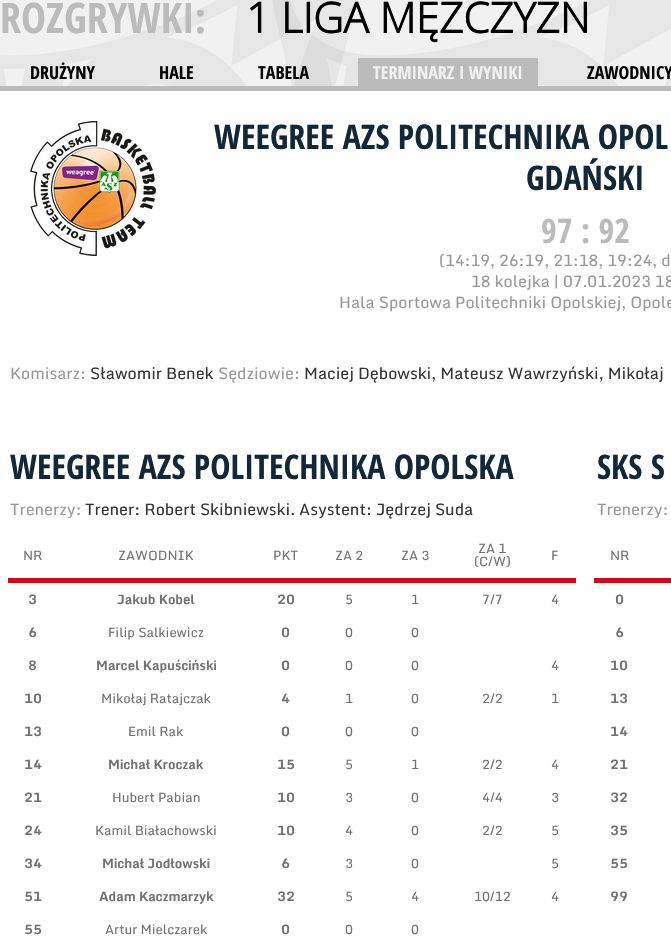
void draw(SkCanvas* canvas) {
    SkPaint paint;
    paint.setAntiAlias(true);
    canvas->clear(0xFFF1F1F1);
    canvas->drawImageRect(SkImages::DeferredFromEncodedData(SkData::MakeFromFileName("img1.png")), SkRect::MakeXYWH(0, 0, 671, 86), SkSamplingOptions());
    SkFont font1(fontMgr->matchFamilyStyle("Open Sans Condensed", SkFontStyle::Bold()), 42);
    font1.setSubpixel(true);
    paint.setColor(0xFFBBBBBB);
    canvas->drawString("ROZGRYWKI:", 0, 33, font1, paint);
    SkFont font2(fontMgr->matchFamilyStyle("Open Sans", SkFontStyle::Bold()), 42);
    font2.setSubpixel(true);
    paint.setColor(0xFF000000);
    canvas->drawString("1 LIGA MĘŻCZYZN", 246, 33, font2, paint);
    paint.setColor(0xFFBBBBBB);
    canvas->drawRect(SkRect::MakeXYWH(0, 86, 671, 5), paint);
    SkFont font3(fontMgr->matchFamilyStyle("Open Sans Condensed", SkFontStyle::Bold()), 18);
    font3.setSubpixel(true);
    paint.setColor(0xFF000000);
    canvas->drawString("DRUŻYNY", 30, 79, font3, paint);
    canvas->drawString("HALE", 159, 79, font3, paint);
    canvas->drawString("TABELA", 258, 79, font3, paint);
    paint.setColor(0xFFBBBBBB);
    canvas->drawRect(SkRect::MakeXYWH(358, 58, 180, 28), paint);
    paint.setColor(0xFFF1F1F1);
    canvas->drawString("TERMINARZ I WYNIKI", 373, 79, font3, paint);
    paint.setColor(0xFF000000);
    canvas->drawString("ZAWODNICY", 587, 79, font3, paint);
    paint.setColor(0xFFFFFFFF);
    canvas->drawRect(SkRect::MakeXYWH(0, 91, 671, 855), paint);
    canvas->drawImageRect(SkImages::DeferredFromEncodedData(SkData::MakeFromFileName("img2.png")), SkRect::MakeXYWH(30, 121, 126, 135), SkSamplingOptions());
    SkFont font4(fontMgr->matchFamilyStyle("Open Sans Condensed", SkFontStyle::Bold()), 34);
    font4.setSubpixel(true);
    paint.setColor(0xFF122737);
    canvas->drawString("WEEGREE AZS POLITECHNIKA OPOL", 214, 149, font4, paint);
    canvas->drawString("GDAŃSKI", 526, 190, font4, paint);
    paint.setColor(0xFFBBBBBB);
    canvas->drawString("97 : 92", 541, 243, font4, paint);
    SkFont font5(fontMgr->matchFamilyStyle("Monda", SkFontStyle::Normal()), 16);
    font5.setSubpixel(true);
    paint.setColor(0xFF989898);
    canvas->drawString("(14:19, 26:19, 21:18, 19:24, d", 439, 266, font5, paint);
    canvas->drawString("18 kolejka | 07.01.2023 18", 471, 287, font5, paint);
    canvas->drawString("Hala Sportowa Politechniki Opolskiej, Opole", 339, 308, font5, paint);
    canvas->drawString("Komisarz:", 10, 379, font5, paint);
    paint.setColor(0xFF333333);
    canvas->drawString("Sławomir Benek", 90, 379, font5, paint);
    paint.setColor(0xFF989898);
    canvas->drawString("Sędziowie:", 218, 379, font5, paint);
    paint.setColor(0xFF333333);
    canvas->drawString("Maciej Dębowski, Mateusz Wawrzyński, Mikołaj", 304, 379, font5, paint);
    paint.setColor(0xFF122737);
    canvas->drawString("WEEGREE AZS POLITECHNIKA OPOLSKA", 10, 479, font4, paint);
    paint.setColor(0xFF989898);
    canvas->drawString("Trenerzy:", 10, 515, font5, paint);
    paint.setColor(0xFF333333);
    canvas->drawString("Trener: Robert Skibniewski. Asystent: Jędrzej Suda", 85, 515, font5, paint);
    SkFont font6(fontMgr->matchFamilyStyle("Monda", SkFontStyle::Normal()), 13);
    font6.setSubpixel(true);
    paint.setColor(0xFF717171);
    canvas->drawString("NR", 23, 560, font6, paint);
    canvas->drawString("ZAWODNIK", 118, 560, font6, paint);
    canvas->drawString("PKT", 273, 560, font6, paint);
    canvas->drawString("ZA 2", 335, 560, font6, paint);
    canvas->drawString("ZA 3", 401, 560, font6, paint);
    canvas->drawString("ZA 1", 478, 553, font6, paint);
    canvas->drawString("(C/W)", 474, 566, font6, paint);
    paint.setColor(0xFFDF0016);
    canvas->drawRect(SkRect::MakeXYWH(8, 578, 568, 5), paint);
    paint.setColor(0xFF717171);
    canvas->drawString("F", 551, 560, font6, paint);
    SkFont font7(fontMgr->matchFamilyStyle("Monda", SkFontStyle::Bold()), 13);
    font7.setSubpixel(true);
    canvas->drawString("3", 28, 604, font7, paint);
    canvas->drawString("Jakub Kobel", 117, 604, font7, paint);
    canvas->drawString("20", 277, 604, font7, paint);
    canvas->drawString("5", 345, 604, font6, paint);
    canvas->drawString("1", 411, 604, font6, paint);
    canvas->drawString("7/7", 482, 604, font6, paint);
    canvas->drawString("4", 551, 604, font6, paint);
    canvas->drawString("6", 28, 637, font7, paint);
    canvas->drawString("Filip Salkiewicz", 108, 637, font6, paint);
    canvas->drawString("0", 281, 637, font7, paint);
    canvas->drawString("0", 345, 637, font6, paint);
    canvas->drawString("0", 411, 637, font6, paint);
    canvas->drawString("8", 28, 670, font7, paint);
    canvas->drawString("Marcel Kapuściński", 96, 670, font7, paint);
    canvas->drawString("0", 281, 670, font7, paint);
    canvas->drawString("0", 345, 670, font6, paint);
    canvas->drawString("0", 411, 670, font6, paint);
    canvas->drawString("4", 551, 670, font6, paint);
    canvas->drawString("10", 24, 703, font7, paint);
    canvas->drawString("Mikołaj Ratajczak", 101, 703, font6, paint);
    canvas->drawString("4", 281, 703, font7, paint);
    canvas->drawString("1", 345, 703, font6, paint);
    canvas->drawString("0", 411, 703, font6, paint);
    canvas->drawString("2/2", 482, 703, font6, paint);
    canvas->drawString("1", 551, 703, font6, paint);
    canvas->drawString("13", 24, 736, font7, paint);
    canvas->drawString("Emil Rak", 128, 736, font6, paint);
    canvas->drawString("0", 281, 736, font7, paint);
    canvas->drawString("0", 345, 736, font6, paint);
    canvas->drawString("0", 411, 736, font6, paint);
    canvas->drawString("14", 24, 769, font7, paint);
    canvas->drawString("Michał Kroczak", 108, 769, font7, paint);
    canvas->drawString("15", 277, 769, font7, paint);
    canvas->drawString("5", 345, 769, font6, paint);
    canvas->drawString("1", 411, 769, font6, paint);
    canvas->drawString("2/2", 482, 769, font6, paint);
    canvas->drawString("4", 551, 769, font6, paint);
    canvas->drawString("21", 24, 802, font7, paint);
    canvas->drawString("Hubert Pabian", 112, 802, font6, paint);
    canvas->drawString("10", 277, 802, font7, paint);
    canvas->drawString("3", 345, 802, font6, paint);
    canvas->drawString("0", 411, 802, font6, paint);
    canvas->drawString("4/4", 482, 802, font6, paint);
    canvas->drawString("3", 551, 802, font6, paint);
    canvas->drawString("24", 24, 835, font7, paint);
    canvas->drawString("Kamil Białachowski", 95, 835, font6, paint);
    canvas->drawString("10", 277, 835, font7, paint);
    canvas->drawString("4", 345, 835, font6, paint);
    canvas->drawString("0", 411, 835, font6, paint);
    canvas->drawString("2/2", 482, 835, font6, paint);
    canvas->drawString("5", 551, 835, font6, paint);
    canvas->drawString("34", 24, 868, font7, paint);
    canvas->drawString("Michał Jodłowski", 102, 868, font7, paint);
    canvas->drawString("6", 281, 868, font7, paint);
    canvas->drawString("3", 345, 868, font6, paint);
    canvas->drawString("0", 411, 868, font6, paint);
    canvas->drawString("5", 551, 868, font6, paint);
    canvas->drawString("51", 24, 901, font7, paint);
    canvas->drawString("Adam Kaczmarzyk", 99, 901, font7, paint);
    canvas->drawString("32", 277, 901, font7, paint);
    canvas->drawString("5", 345, 901, font6, paint);
    canvas->drawString("4", 411, 901, font6, paint);
    canvas->drawString("10/12", 474, 901, font6, paint);
    canvas->drawString("4", 551, 901, font6, paint);
    canvas->drawString("55", 24, 934, font7, paint);
    canvas->drawString("Artur Mielczarek", 105, 934, font6, paint);
    canvas->drawString("0", 281, 934, font7, paint);
    canvas->drawString("0", 345, 934, font6, paint);
    canvas->drawString("0", 411, 934, font6, paint);
    paint.setColor(0xFF122737);
    canvas->drawString("SKS S", 597, 479, font4, paint);
    paint.setColor(0xFF989898);
    canvas->drawString("Trenerzy:", 597, 515, font5, paint);
    paint.setColor(0xFF717171);
    canvas->drawString("NR", 610, 560, font6, paint);
    paint.setColor(0xFFDF0016);
    canvas->drawRect(SkRect::MakeXYWH(594, 578, 77, 5), paint);
    paint.setColor(0xFF717171);
    canvas->drawString("0", 615, 604, font7, paint);
    canvas->drawString("6", 615, 637, font7, paint);
    canvas->drawString("10", 610, 670, font7, paint);
    canvas->drawString("13", 610, 703, font7, paint);
    canvas->drawString("14", 610, 736, font7, paint);
    canvas->drawString("21", 610, 769, font7, paint);
    canvas->drawString("32", 610, 802, font7, paint);
    canvas->drawString("35", 610, 835, font7, paint);
    canvas->drawString("55", 610, 868, font7, paint);
    canvas->drawString("99", 610, 901, font7, paint);
}
